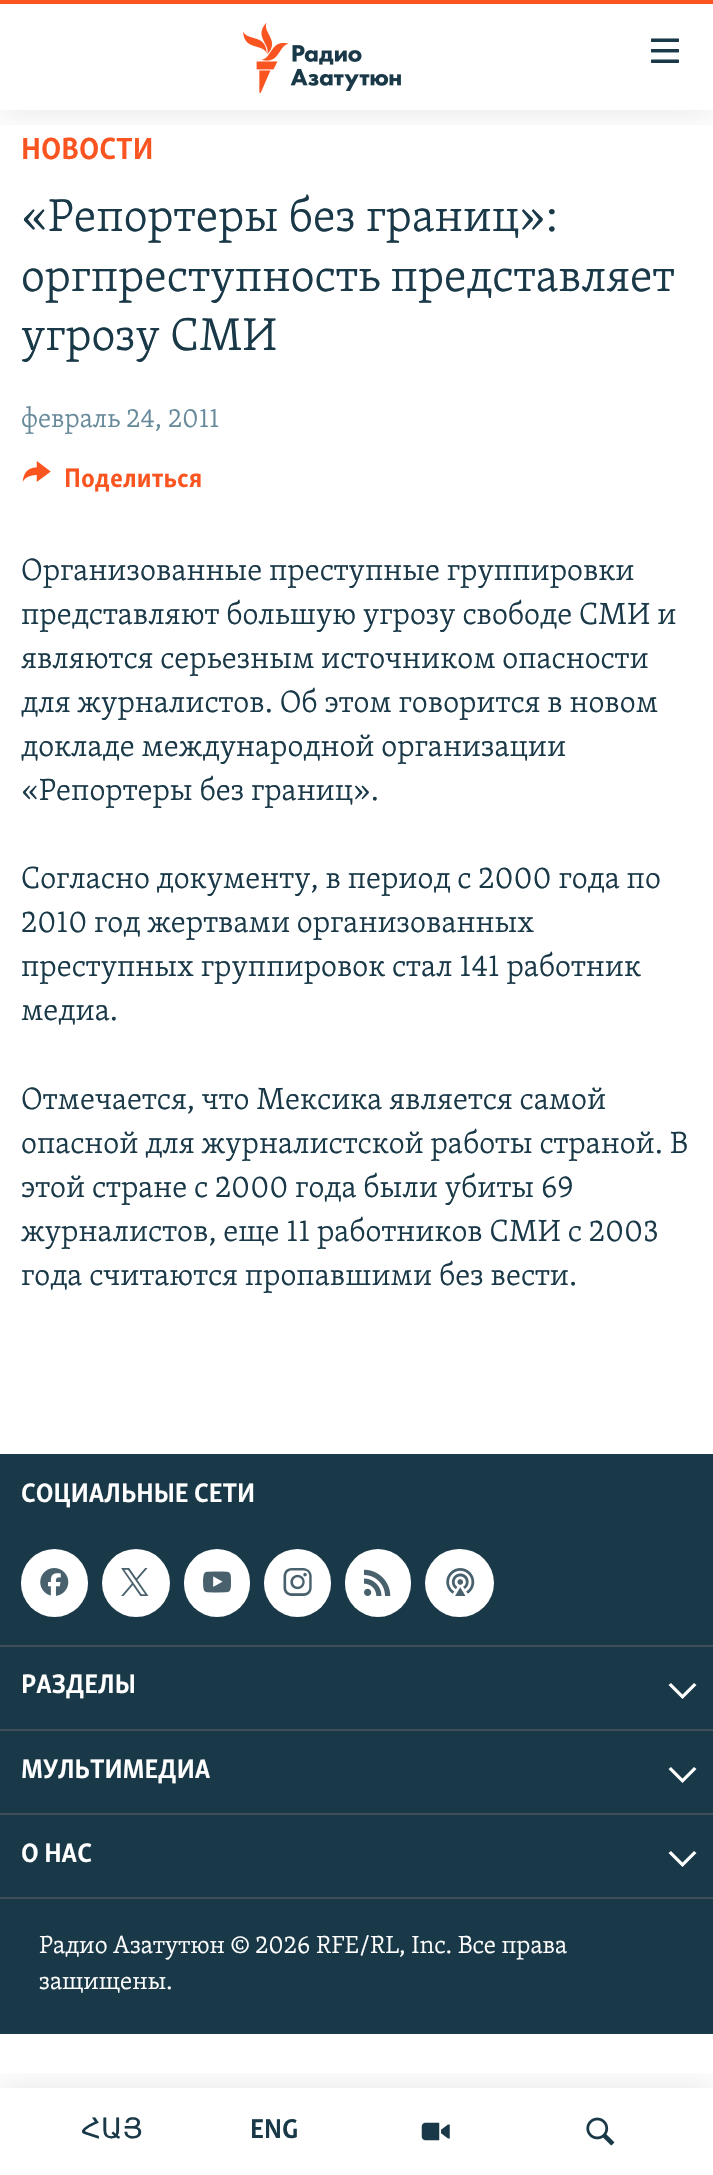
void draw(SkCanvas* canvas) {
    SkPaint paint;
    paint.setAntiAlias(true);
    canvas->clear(0xFFFFFFFF);
    SkFont font1(fontMgr->matchFamilyStyle("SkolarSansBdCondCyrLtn", SkFontStyle::Bold()), 31.5f);
    font1.setSubpixel(true);
    paint.setColor(0xFFFA5420);
    canvas->drawString("НОВОСТИ", 21, 159, font1, paint);
    SkFont font2(fontMgr->matchFamilyStyle("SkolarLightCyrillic", SkFontStyle(300, SkFontStyle::kNormal_Width, SkFontStyle::kUpright_Slant)), 47.25f);
    font2.setSubpixel(true);
    paint.setColor(0xFF1A3948);
    canvas->drawString("«Репортеры без границ»:", 21, 231, font2, paint);
    canvas->drawString("оргпреступность представляет", 21, 291, font2, paint);
    canvas->drawString("угрозу СМИ", 21, 350, font2, paint);
    SkFont font3(fontMgr->matchFamilyStyle("SkolarLightCyrillic", SkFontStyle(300, SkFontStyle::kNormal_Width, SkFontStyle::kUpright_Slant)), 27.5f);
    font3.setSubpixel(true);
    paint.setColor(0xFF678A9B);
    canvas->drawString("февраль 24, 2011", 21, 427, font3, paint);
    canvas->drawImageRect(SkImages::DeferredFromEncodedData(SkData::MakeFromFileName("img1.png")), SkRect::MakeXYWH(22, 461, 29, 21), SkSamplingOptions());
    SkFont font4(fontMgr->matchFamilyStyle("SkolarSansBdCondCyrLtn", SkFontStyle::Bold()), 27.5f);
    font4.setSubpixel(true);
    paint.setColor(0xFFFA5420);
    canvas->drawString("Поделиться", 64, 487, font4, paint);
    SkFont font5(fontMgr->matchFamilyStyle("SkolarLightCyrillic", SkFontStyle(300, SkFontStyle::kNormal_Width, SkFontStyle::kUpright_Slant)), 31.5f);
    font5.setSubpixel(true);
    paint.setColor(0xFF1A3948);
    canvas->drawString("Организованные преступные группировки", 21, 580, font5, paint);
    canvas->drawString("представляют большую угрозу свободе СМИ и", 21, 624, font5, paint);
    canvas->drawString("являются серьезным источником опасности", 21, 668, font5, paint);
    canvas->drawString("для журналистов. Об этом говорится в новом", 21, 712, font5, paint);
    canvas->drawString("докладе международной организации", 21, 756, font5, paint);
    canvas->drawString("«Репортеры без границ».", 21, 800, font5, paint);
    canvas->drawString("Согласно документу, в период с 2000 года по", 21, 888, font5, paint);
    canvas->drawString("2010 год жертвами организованных", 21, 932, font5, paint);
    canvas->drawString("преступных группировок стал 141 работник", 21, 976, font5, paint);
    canvas->drawString("медиа.", 21, 1020, font5, paint);
    canvas->drawString("Отмечается, что Мексика является самой", 21, 1109, font5, paint);
    canvas->drawString("опасной для журналистской работы страной. В", 21, 1153, font5, paint);
    canvas->drawString("этой стране с 2000 года были убиты 69", 21, 1197, font5, paint);
    canvas->drawString("журналистов, еще 11 работников СМИ с 2003", 21, 1241, font5, paint);
    canvas->drawString("года считаются пропавшими без вести.", 21, 1285, font5, paint);
    canvas->drawRect(SkRect::MakeXYWH(0, 1454, 713, 580), paint);
    paint.setColor(0xFF3E4F57);
    canvas->drawRect(SkRect::MakeXYWH(0, 1897, 713, 2), paint);
    paint.setColor(0xFFFFFFFF);
    canvas->drawString("СОЦИАЛЬНЫЕ СЕТИ", 21, 1502, font4, paint);
    canvas->drawRoundRect(SkRect::MakeXYWH(21, 1549, 67, 68), 33.5f, 33.5f, paint);
    canvas->drawImageRect(SkImages::DeferredFromEncodedData(SkData::MakeFromFileName("img2.png")), SkRect::MakeXYWH(40, 1568, 29, 28), SkSamplingOptions());
    canvas->drawCircle(136, 1583, 34, paint);
    canvas->drawImageRect(SkImages::DeferredFromEncodedData(SkData::MakeFromFileName("img3.png")), SkRect::MakeXYWH(121, 1568, 28, 28), SkSamplingOptions());
    canvas->drawRoundRect(SkRect::MakeXYWH(184, 1549, 66, 68), 33, 33, paint);
    canvas->drawImageRect(SkImages::DeferredFromEncodedData(SkData::MakeFromFileName("img4.png")), SkRect::MakeXYWH(203, 1571, 28, 22), SkSamplingOptions());
    canvas->drawRoundRect(SkRect::MakeXYWH(264, 1549, 67, 68), 33.5f, 33.5f, paint);
    canvas->drawImageRect(SkImages::DeferredFromEncodedData(SkData::MakeFromFileName("img5.png")), SkRect::MakeXYWH(283, 1568, 29, 28), SkSamplingOptions());
    canvas->drawRoundRect(SkRect::MakeXYWH(345, 1549, 66, 68), 33, 33, paint);
    canvas->drawImageRect(SkImages::DeferredFromEncodedData(SkData::MakeFromFileName("img6.png")), SkRect::MakeXYWH(364, 1569, 27, 27), SkSamplingOptions());
    canvas->drawRoundRect(SkRect::MakeXYWH(425, 1549, 69, 68), 34, 34, paint);
    canvas->drawImageRect(SkImages::DeferredFromEncodedData(SkData::MakeFromFileName("img7.png")), SkRect::MakeXYWH(446, 1568, 29, 28), SkSamplingOptions());
    paint.setColor(0xFF3E4F57);
    canvas->drawRect(SkRect::MakeXYWH(0, 1645, 713, 2), paint);
    paint.setColor(0xFFFFFFFF);
    canvas->drawString("РАЗДЕЛЫ", 21, 1693, font4, paint);
    canvas->drawPath(SkPathBuilder().moveTo(668.5f, 1685).lineTo(682.5f, 1699).lineTo(696.5f, 1685).lineTo(694, 1683).lineTo(682.5f, 1694.5f).lineTo(671, 1683).close().detach(), paint);
    paint.setColor(0xFF3E4F57);
    canvas->drawRect(SkRect::MakeXYWH(0, 1729, 713, 2), paint);
    paint.setColor(0xFFFFFFFF);
    canvas->drawString("МУЛЬТИМЕДИА", 21, 1778, font4, paint);
    canvas->drawPath(SkPathBuilder().moveTo(668.5f, 1769).lineTo(682.5f, 1783).lineTo(696.5f, 1769).lineTo(694, 1767).lineTo(682.5f, 1778.5f).lineTo(671, 1767).close().detach(), paint);
    paint.setColor(0xFF3E4F57);
    canvas->drawRect(SkRect::MakeXYWH(0, 1813, 713, 2), paint);
    paint.setColor(0xFFFFFFFF);
    canvas->drawString("О НАС", 21, 1862, font4, paint);
    canvas->drawPath(SkPathBuilder().moveTo(668.5f, 1853).lineTo(682.5f, 1867).lineTo(696.5f, 1853).lineTo(694, 1851).lineTo(682.5f, 1862.5f).lineTo(671, 1851).close().detach(), paint);
    SkFont font6(fontMgr->matchFamilyStyle("SkolarLightCyrillic", SkFontStyle(300, SkFontStyle::kNormal_Width, SkFontStyle::kUpright_Slant)), 25.5f);
    font6.setSubpixel(true);
    canvas->drawString("Радио Азатутюн © 2026", 39, 1953, font6, paint);
    canvas->drawString("RFE/RL, Inc. Все права", 316, 1953, font6, paint);
    canvas->drawString("защищены.", 39, 1989, font6, paint);
    canvas->save();
    canvas->clipRect(SkRect::MakeXYWH(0, 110, 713, 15));
    paint.setColor(0x1A000000);
    paint.setMaskFilter(SkMaskFilter::MakeBlur(kNormal_SkBlurStyle, 17.5f));
    canvas->drawRect(SkRect::MakeXYWH(0, 0, 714, 110), paint);
    paint.setMaskFilter(nullptr);
    canvas->restore();
    paint.setColor(0xFFFA5420);
    canvas->drawRect(SkRect::MakeXYWH(0, 0, 713, 4), paint);
    canvas->drawImageRect(SkImages::DeferredFromEncodedData(SkData::MakeFromFileName("img8.png")), SkRect::MakeXYWH(243, 23, 158, 70), SkSamplingOptions());
    canvas->drawImageRect(SkImages::DeferredFromEncodedData(SkData::MakeFromFileName("img9.png")), SkRect::MakeXYWH(651, 38, 28, 25), SkSamplingOptions());
    canvas->save();
    canvas->clipRect(SkRect::MakeXYWH(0, 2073, 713, 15));
    paint.setColor(0x1A000000);
    paint.setMaskFilter(SkMaskFilter::MakeBlur(kNormal_SkBlurStyle, 17.5f));
    canvas->drawRect(SkRect::MakeXYWH(0, 2088, 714, 87), paint);
    paint.setMaskFilter(nullptr);
    canvas->restore();
    SkFont font7(fontMgr->matchFamilyStyle("DejaVu Sans", SkFontStyle::Normal()), 28);
    font7.setSubpixel(true);
    paint.setColor(0xFF1A3948);
    canvas->drawString("ՀԱՅ", 81, 2138, font7, paint);
    SkFont font8(fontMgr->matchFamilyStyle("SkolarSansBdCondCyrLtn", SkFontStyle::Bold()), 28);
    font8.setSubpixel(true);
    canvas->drawString("ENG", 250, 2138, font8, paint);
    canvas->drawImageRect(SkImages::DeferredFromEncodedData(SkData::MakeFromFileName("img10.png")), SkRect::MakeXYWH(421, 2122, 29, 19), SkSamplingOptions());
    canvas->drawImageRect(SkImages::DeferredFromEncodedData(SkData::MakeFromFileName("img11.png")), SkRect::MakeXYWH(586, 2117, 29, 29), SkSamplingOptions());
}
